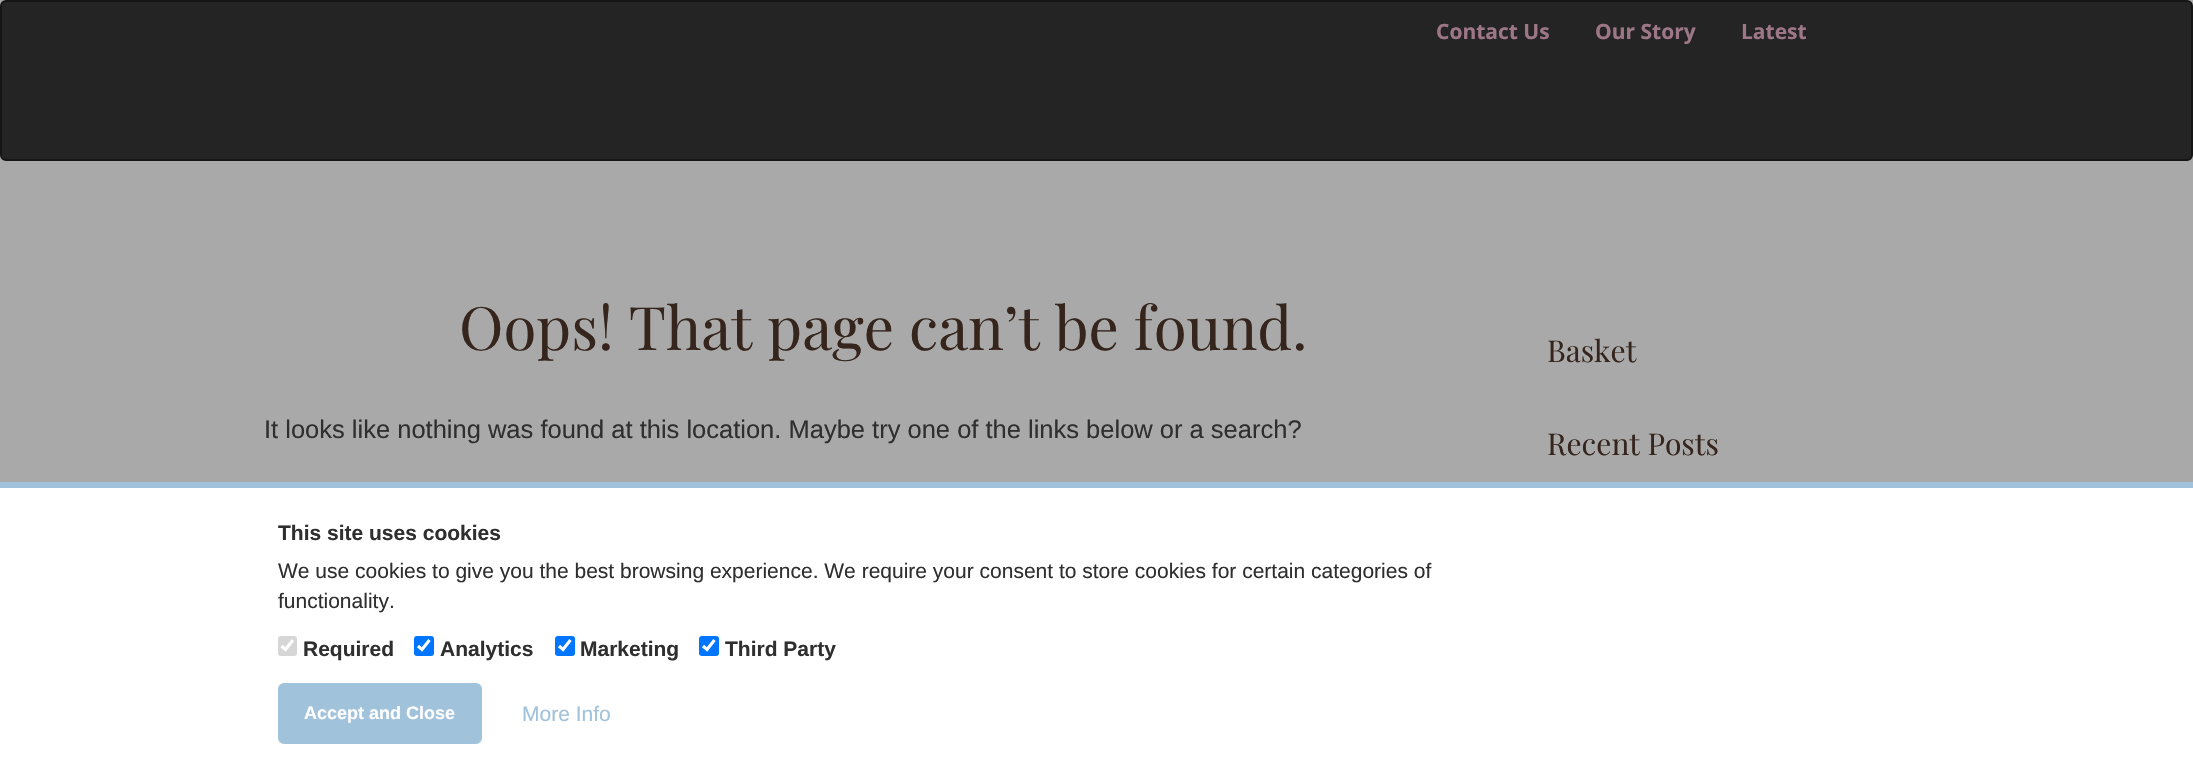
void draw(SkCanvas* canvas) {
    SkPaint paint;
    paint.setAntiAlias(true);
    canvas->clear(0xFFA9A9A9);
    paint.setColor(0xFF242424);
    canvas->drawRoundRect(SkRect::MakeXYWH(1, 1, 2191, 159), 5, 5, paint);
    paint.setStyle(SkPaint::kStroke_Style);
    paint.setStrokeWidth(2);
    paint.setColor(0xFF151515);
    canvas->drawRoundRect(SkRect::MakeXYWH(1, 1, 2191, 159), 5, 5, paint);
    SkFont font1(fontMgr->matchFamilyStyle("Open Sans", SkFontStyle::Bold()), 21);
    font1.setSubpixel(true);
    paint.setStyle(SkPaint::kFill_Style);
    paint.setColor(0xFF9E7787);
    canvas->drawString("Contact Us", 1436, 39, font1, paint);
    canvas->drawString("Our Story", 1595, 39, font1, paint);
    canvas->drawString("Latest", 1741, 39, font1, paint);
    SkFont font2(fontMgr->matchFamilyStyle("Playfair Display", SkFontStyle::Normal()), 60);
    font2.setSubpixel(true);
    paint.setColor(0xFF35251C);
    canvas->drawString("Oops! That page can’t be found.", 459, 350, font2, paint);
    SkFont font3(fontMgr->matchFamilyStyle("Liberation Sans", SkFontStyle::Normal()), 25.5f);
    font3.setSubpixel(true);
    paint.setColor(0xFF2F2F2F);
    canvas->drawString("It looks like nothing was found at this location. Maybe try one of the links below or a search?", 264, 438, font3, paint);
    SkFont font4(fontMgr->matchFamilyStyle("Playfair Display", SkFontStyle::Normal()), 30);
    font4.setSubpixel(true);
    paint.setColor(0xFF35251C);
    canvas->drawString("Basket", 1547, 362, font4, paint);
    canvas->drawString("Recent Posts", 1547, 455, font4, paint);
    paint.setColor(0xFFFFFFFF);
    canvas->drawRect(SkRect::MakeXYWH(0, 488, 2193, 286), paint);
    paint.setColor(0xFFA0C2DB);
    canvas->drawRect(SkRect::MakeXYWH(0, 482, 2193, 6), paint);
    SkFont font5(fontMgr->matchFamilyStyle("Liberation Sans", SkFontStyle::Bold()), 21);
    font5.setSubpixel(true);
    paint.setColor(0xFF2F2F2F);
    canvas->drawString("This site uses cookies", 278, 540, font5, paint);
    SkFont font6(fontMgr->matchFamilyStyle("Liberation Sans", SkFontStyle::Normal()), 21);
    font6.setSubpixel(true);
    canvas->drawString("We use cookies to give you the best browsing experience. We require your consent to store cookies for certain categories of", 278, 578, font6, paint);
    canvas->drawString("functionality.", 278, 608, font6, paint);
    paint.setColor(0xFFD6D6D6);
    canvas->drawRoundRect(SkRect::MakeXYWH(278, 636, 19, 20), 3, 3, paint);
    paint.setStyle(SkPaint::kStroke_Style);
    paint.setStrokeWidth(3.1f);
    paint.setColor(0xFFFFFFFF);
    canvas->drawPath(SkPathBuilder().moveTo(281.5f, 646).lineTo(285.5f, 649.5f).lineTo(293, 640).detach(), paint);
    paint.setStyle(SkPaint::kFill_Style);
    paint.setColor(0xFF2F2F2F);
    canvas->drawString("Required", 303, 656, font5, paint);
    paint.setColor(0xFF0075FF);
    canvas->drawRoundRect(SkRect::MakeXYWH(414, 636, 20, 20), 3, 3, paint);
    paint.setStyle(SkPaint::kStroke_Style);
    paint.setColor(0xFFFFFFFF);
    canvas->drawPath(SkPathBuilder().moveTo(418, 646).lineTo(422, 649.5f).lineTo(429.5f, 640).detach(), paint);
    paint.setStyle(SkPaint::kFill_Style);
    paint.setColor(0xFF2F2F2F);
    canvas->drawString("Analytics", 440, 656, font5, paint);
    paint.setColor(0xFF0075FF);
    canvas->drawRoundRect(SkRect::MakeXYWH(555, 636, 20, 20), 3, 3, paint);
    paint.setStyle(SkPaint::kStroke_Style);
    paint.setColor(0xFFFFFFFF);
    canvas->drawPath(SkPathBuilder().moveTo(559, 646).lineTo(563, 649.5f).lineTo(570.5f, 640).detach(), paint);
    paint.setStyle(SkPaint::kFill_Style);
    paint.setColor(0xFF2F2F2F);
    canvas->drawString("Marketing", 580, 656, font5, paint);
    paint.setColor(0xFF0075FF);
    canvas->drawRoundRect(SkRect::MakeXYWH(699, 636, 20, 20), 3, 3, paint);
    paint.setStyle(SkPaint::kStroke_Style);
    paint.setColor(0xFFFFFFFF);
    canvas->drawPath(SkPathBuilder().moveTo(703, 646).lineTo(707, 649.5f).lineTo(714.5f, 640).detach(), paint);
    paint.setStyle(SkPaint::kFill_Style);
    paint.setColor(0xFF2F2F2F);
    canvas->drawString("Third Party", 725, 656, font5, paint);
    paint.setColor(0xFFA0C2DB);
    canvas->drawRoundRect(SkRect::MakeXYWH(279, 684, 202, 59), 5, 5, paint);
    paint.setStyle(SkPaint::kStroke_Style);
    paint.setStrokeWidth(2);
    canvas->drawRoundRect(SkRect::MakeXYWH(279, 684, 202, 59), 5, 5, paint);
    SkFont font7(fontMgr->matchFamilyStyle("Liberation Sans", SkFontStyle::Bold()), 18);
    font7.setSubpixel(true);
    paint.setStyle(SkPaint::kFill_Style);
    paint.setColor(0xFFFFFFFF);
    canvas->drawString("Accept and Close", 304, 719, font7, paint);
    paint.setColor(0xFFA0C2DB);
    canvas->drawString("More Info", 522, 721, font6, paint);
}
